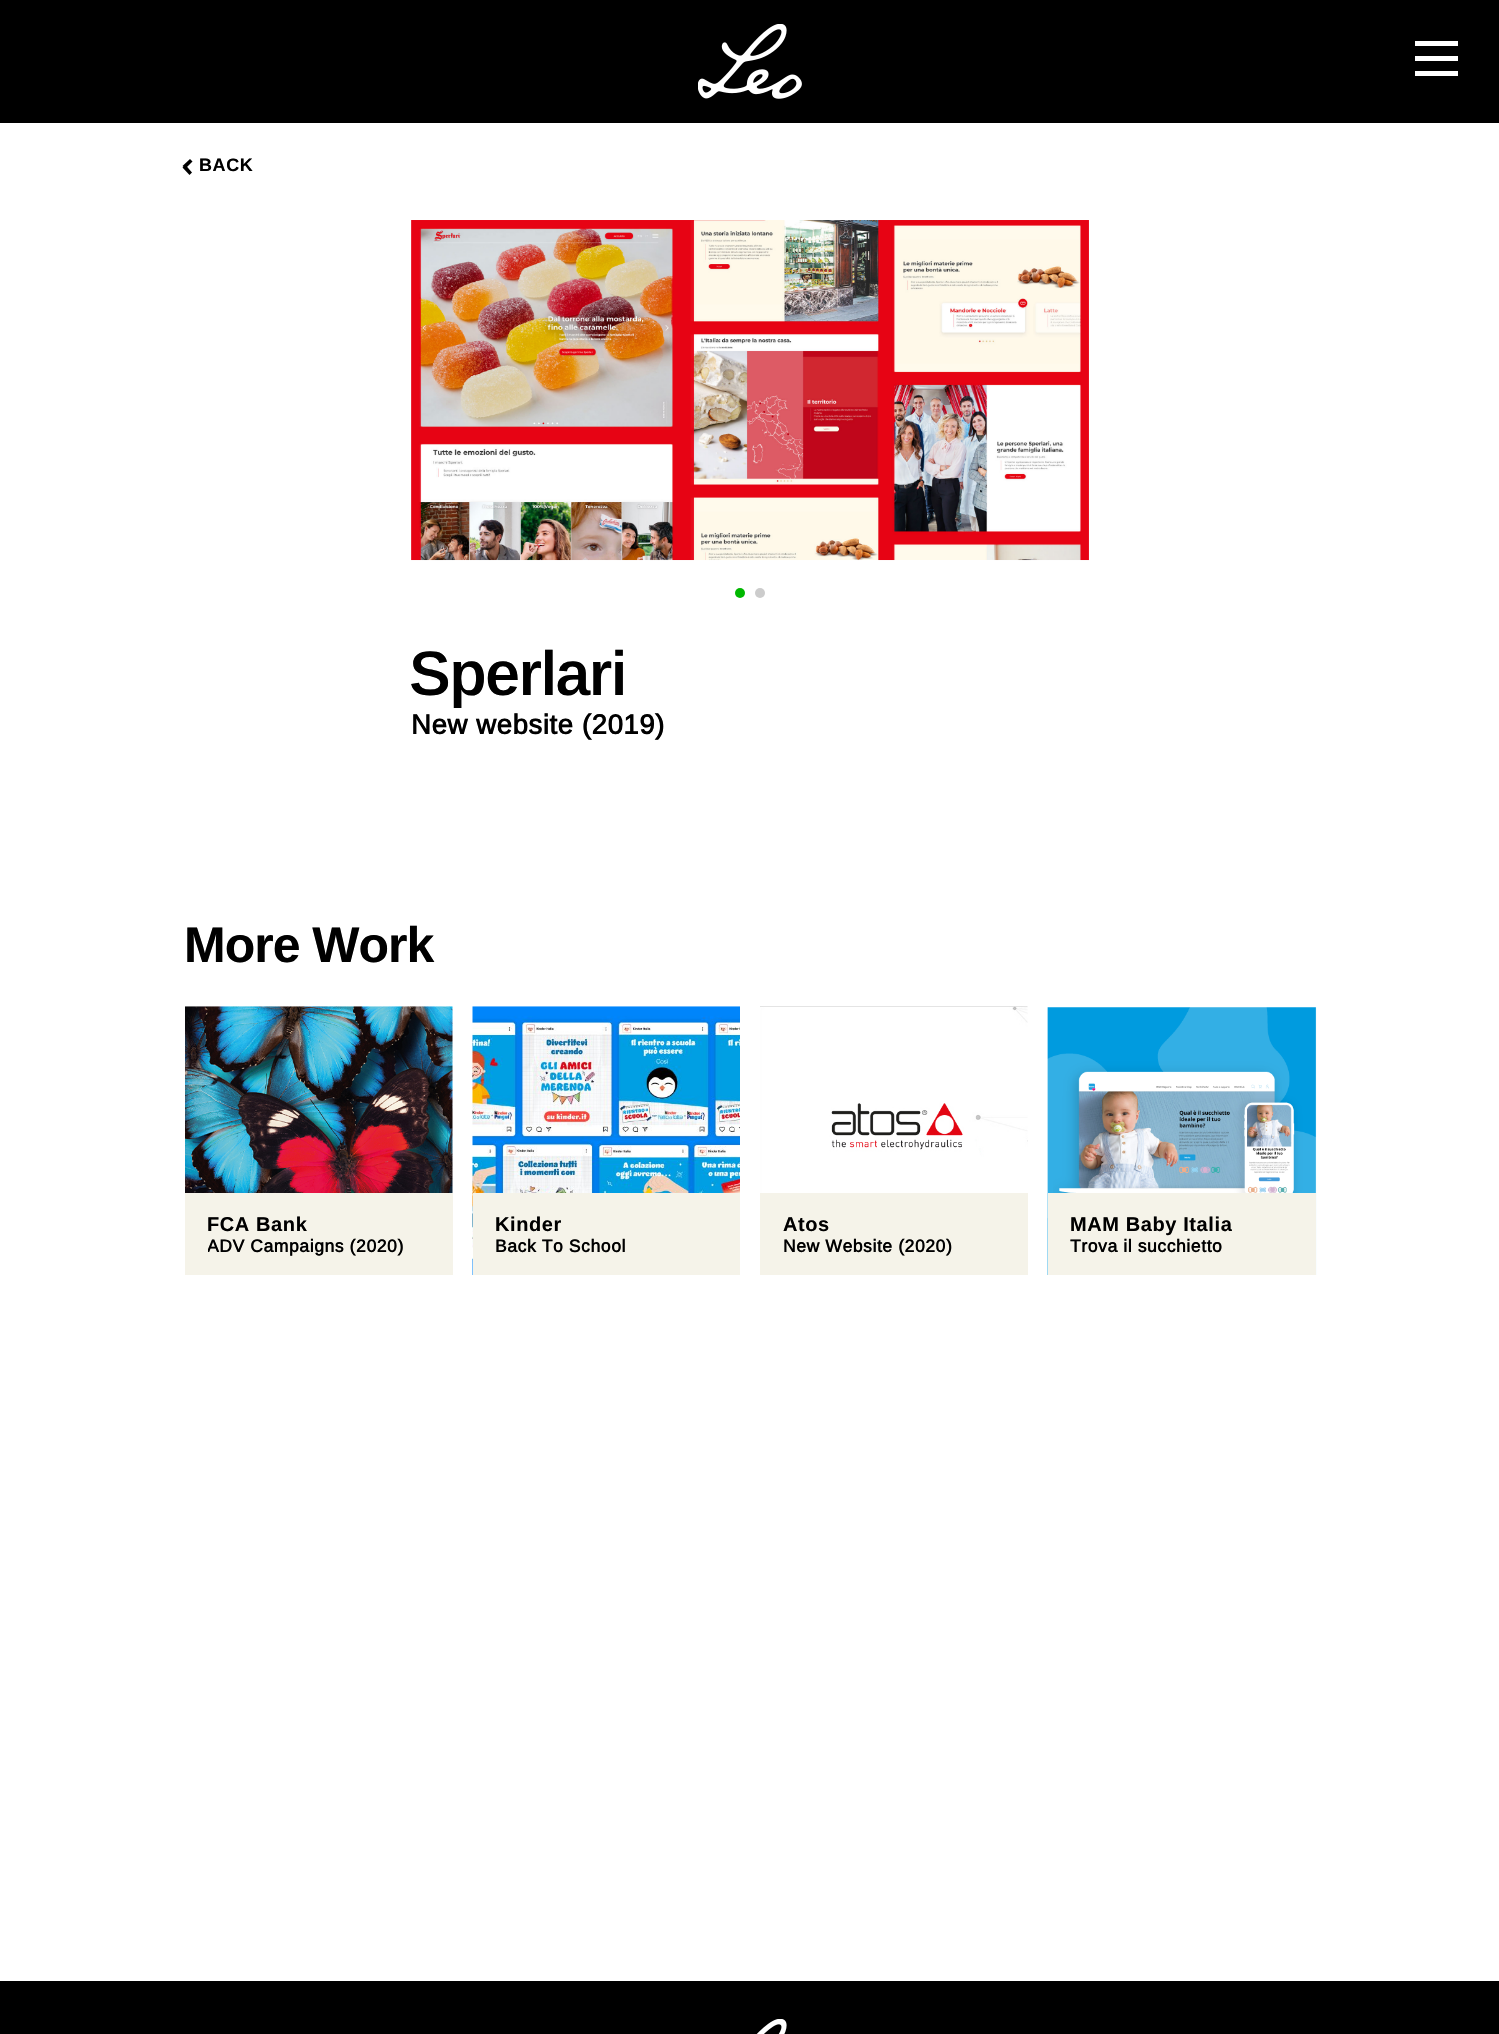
void draw(SkCanvas* canvas) {
    SkPaint paint;
    paint.setAntiAlias(true);
    auto spacedText = [&](const char* s, float x, float y, const SkFont& font, const SkPaint& ink, float letter, float word) {
        std::vector<SkGlyphID> glyphs(font.countText(s, strlen(s), SkTextEncoding::kUTF8));
        std::vector<float> xs(glyphs.size());
        font.textToGlyphs(s, strlen(s), SkTextEncoding::kUTF8, glyphs);
        font.getXPos(glyphs, xs, x);
        float extra = 0;
        for (size_t i = 0; i < glyphs.size(); i++) {
            xs[i] += extra;
            extra += letter + word * (glyphs[i] == font.unicharToGlyph(' '));
        }
        canvas->drawTextBlob(SkTextBlob::MakeFromPosHGlyphs(glyphs, xs, y, font), 0, 0, ink);
    };
    canvas->clear(0xFFFFFFFF);
    paint.setColor(0xFF000000);
    canvas->drawRect(SkRect::MakeXYWH(0, 0, 1499, 123), paint);
    canvas->drawImageRect(SkImages::DeferredFromEncodedData(SkData::MakeFromFileName("img1.png")), SkRect::MakeXYWH(698, 24, 104, 75), SkSamplingOptions());
    paint.setColor(0xFFFFFFFF);
    canvas->drawRect(SkRect::MakeXYWH(1415, 56, 43, 5), paint);
    canvas->drawRect(SkRect::MakeXYWH(1415, 41, 43, 5), paint);
    canvas->drawRect(SkRect::MakeXYWH(1415, 71, 43, 5), paint);
    paint.setColor(0xFF000000);
    canvas->drawPath(SkPathBuilder().moveTo(189.5f, 175).lineTo(182.5f, 167.5f).lineTo(185.5f, 165).lineTo(192, 172.5f).close().detach(), paint);
    canvas->drawPath(SkPathBuilder().moveTo(185.5f, 168.5f).lineTo(182.5f, 166).lineTo(190, 159).lineTo(192.5f, 161.5f).close().detach(), paint);
    SkFont font1(fontMgr->matchFamilyStyle("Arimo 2", SkFontStyle::Bold()), 18);
    font1.setSubpixel(true);
    spacedText("BACK", 199, 171, font1, paint, 0.6f, 0);
    canvas->drawImageRect(SkImages::DeferredFromEncodedData(SkData::MakeFromFileName("img2.png")), SkRect::MakeXYWH(411, 220, 678, 341), SkSamplingOptions());
    paint.setColor(0xFF00B800);
    canvas->drawCircle(740, 593, 5, paint);
    paint.setColor(0xFFCCCCCC);
    canvas->drawCircle(760, 593, 5, paint);
    SkFont font2(fontMgr->matchFamilyStyle("Arimo", SkFontStyle(600, SkFontStyle::kNormal_Width, SkFontStyle::kUpright_Slant)), 62.5f);
    font2.setSubpixel(true);
    paint.setColor(0xFF000000);
    spacedText("Sperlari", 409, 695, font2, paint, -1.25f, 0);
    SkFont font3(fontMgr->matchFamilyStyle("Arimo", SkFontStyle::Bold()), 27.5f);
    font3.setSubpixel(true);
    spacedText("New website (2019)", 411, 734, font3, paint, 0.6f, 0);
    SkFont font4(fontMgr->matchFamilyStyle("Arimo 2", SkFontStyle::Bold()), 50);
    font4.setSubpixel(true);
    spacedText("More Work", 184, 962, font4, paint, -1, 0);
    canvas->drawImageRect(SkImages::DeferredFromEncodedData(SkData::MakeFromFileName("img3.png")), SkRect::MakeXYWH(185, 1006, 268, 187), SkSamplingOptions());
    paint.setColor(0xFFF5F3E9);
    canvas->drawRect(SkRect::MakeXYWH(185, 1193, 268, 82), paint);
    SkFont font5(fontMgr->matchFamilyStyle("Arimo 2", SkFontStyle::Bold()), 20);
    font5.setSubpixel(true);
    paint.setColor(0xFF000000);
    spacedText("FCA Bank", 207, 1231, font5, paint, 0.6f, 0);
    canvas->save();
    canvas->clipRect(SkRect::MakeXYWH(208, 1236, 222, 20));
    SkFont font6(fontMgr->matchFamilyStyle("Arimo", SkFontStyle::Bold()), 17.5f);
    font6.setSubpixel(true);
    spacedText("ADV Campaigns (2020)", 207, 1252, font6, paint, 0.6f, 0);
    canvas->restore();
    canvas->drawImageRect(SkImages::DeferredFromEncodedData(SkData::MakeFromFileName("img4.png")), SkRect::MakeXYWH(472, 1006, 268, 269), SkSamplingOptions());
    paint.setColor(0xFFF5F3E9);
    canvas->drawRect(SkRect::MakeXYWH(473, 1193, 267, 82), paint);
    paint.setColor(0xFF000000);
    spacedText("Kinder", 495, 1231, font5, paint, 0.6f, 0);
    spacedText("Back To School", 495, 1252, font6, paint, 0.6f, 0);
    canvas->drawImageRect(SkImages::DeferredFromEncodedData(SkData::MakeFromFileName("img5.png")), SkRect::MakeXYWH(760, 1006, 268, 187), SkSamplingOptions());
    paint.setColor(0xFFF5F3E9);
    canvas->drawRect(SkRect::MakeXYWH(760, 1193, 268, 82), paint);
    paint.setColor(0xFF000000);
    spacedText("Atos", 783, 1231, font5, paint, 0.6f, 0);
    spacedText("New Website (2020)", 783, 1252, font6, paint, 0.6f, 0);
    canvas->drawImageRect(SkImages::DeferredFromEncodedData(SkData::MakeFromFileName("img6.png")), SkRect::MakeXYWH(1047, 1007, 270, 268), SkSamplingOptions());
    paint.setColor(0xFFF5F3E9);
    canvas->drawRect(SkRect::MakeXYWH(1048, 1193, 268, 82), paint);
    paint.setColor(0xFF000000);
    spacedText("MAM Baby Italia", 1070, 1231, font5, paint, 0.6f, 0);
    spacedText("Trova il succhietto", 1070, 1252, font6, paint, 0.6f, 0);
    canvas->drawRect(SkRect::MakeXYWH(0, 1981, 1499, 53), paint);
    canvas->drawImageRect(SkImages::DeferredFromEncodedData(SkData::MakeFromFileName("img7.png")), SkRect::MakeXYWH(756, 2019, 31, 15), SkSamplingOptions());
}
